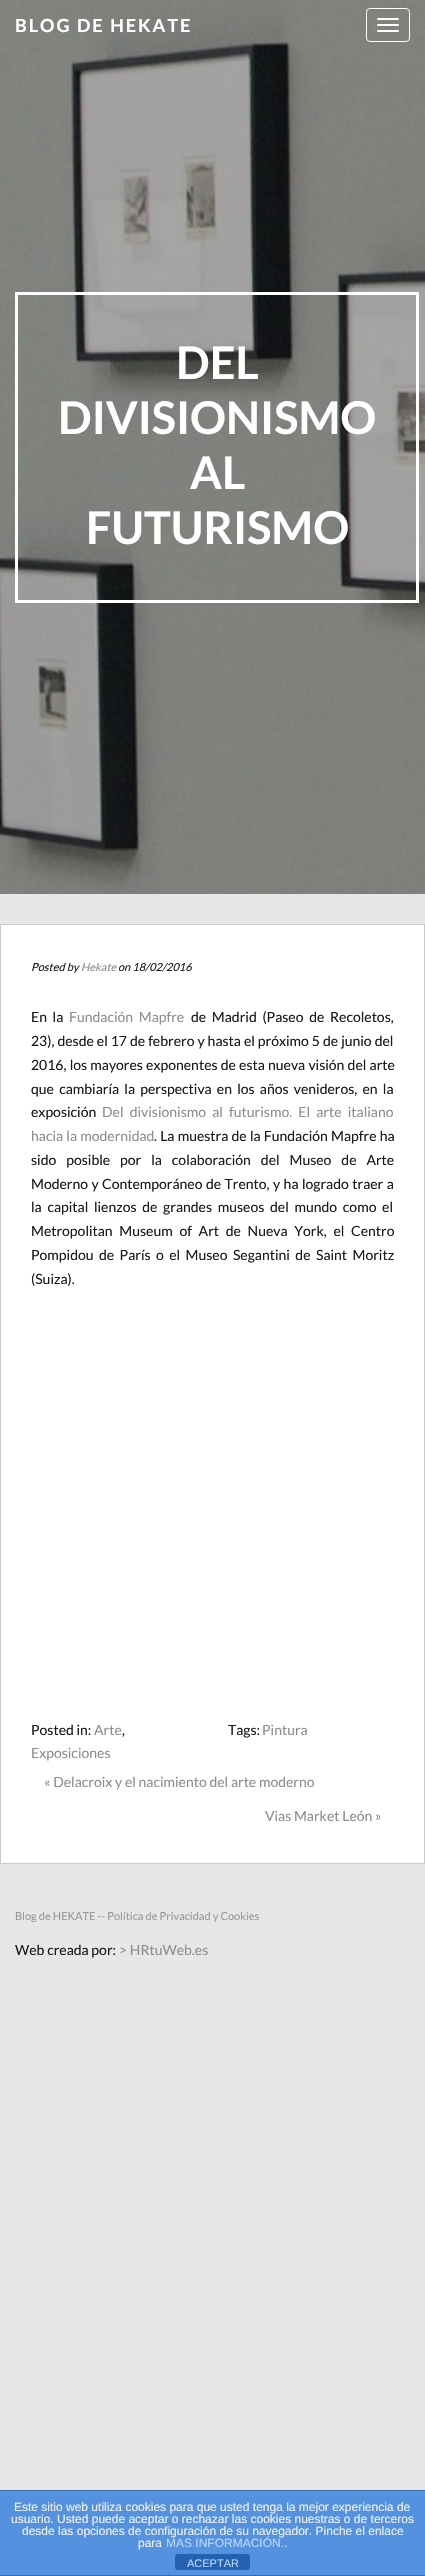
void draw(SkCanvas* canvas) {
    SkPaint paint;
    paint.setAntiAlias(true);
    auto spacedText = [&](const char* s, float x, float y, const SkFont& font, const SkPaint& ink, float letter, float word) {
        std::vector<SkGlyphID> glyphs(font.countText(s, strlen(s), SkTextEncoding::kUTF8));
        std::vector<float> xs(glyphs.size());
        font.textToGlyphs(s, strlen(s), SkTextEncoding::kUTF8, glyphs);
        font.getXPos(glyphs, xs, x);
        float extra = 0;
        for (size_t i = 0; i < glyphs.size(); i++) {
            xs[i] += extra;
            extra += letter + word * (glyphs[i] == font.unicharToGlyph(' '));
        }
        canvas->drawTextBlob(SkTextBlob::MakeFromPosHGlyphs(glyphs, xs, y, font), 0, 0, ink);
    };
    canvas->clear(0xFFE7E7E7);
    canvas->drawImageRect(SkImages::DeferredFromEncodedData(SkData::MakeFromFileName("img1.png")), SkRect::MakeXYWH(0, 0, 425, 894), SkSamplingOptions());
    SkFont font1(fontMgr->matchFamilyStyle("Lato", SkFontStyle::Bold()), 18);
    font1.setSubpixel(true);
    paint.setColor(0xFFFFFFFF);
    spacedText("BLOG DE HEKATE", 15, 32, font1, paint, 2, 0);
    paint.setStyle(SkPaint::kStroke_Style);
    paint.setStrokeWidth(1);
    canvas->drawRoundRect(SkRect::MakeXYWH(366.5f, 8.5f, 43, 33), 3.5f, 3.5f, paint);
    paint.setStyle(SkPaint::kFill_Style);
    canvas->drawRoundRect(SkRect::MakeXYWH(377, 18, 22, 2), 1, 1, paint);
    canvas->drawRoundRect(SkRect::MakeXYWH(377, 24, 22, 2), 1, 1, paint);
    canvas->drawRoundRect(SkRect::MakeXYWH(377, 30, 22, 2), 1, 1, paint);
    paint.setStyle(SkPaint::kStroke_Style);
    paint.setStrokeWidth(3);
    canvas->drawRect(SkRect::MakeXYWH(16.5f, 293.5f, 401, 308), paint);
    SkFont font2(fontMgr->matchFamilyStyle("Lato", SkFontStyle::Bold()), 45);
    font2.setSubpixel(true);
    paint.setStyle(SkPaint::kFill_Style);
    canvas->drawString("DEL", 176, 379, font2, paint);
    canvas->drawString("DIVISIONISMO", 58, 434, font2, paint);
    canvas->drawString("AL", 190, 489, font2, paint);
    canvas->drawString("FUTURISMO", 86, 544, font2, paint);
    canvas->drawRect(SkRect::MakeXYWH(0.5f, 924.5f, 424, 939), paint);
    paint.setStyle(SkPaint::kStroke_Style);
    paint.setStrokeWidth(1);
    paint.setColor(0xFFCACACA);
    canvas->drawRect(SkRect::MakeXYWH(0.5f, 924.5f, 424, 939), paint);
    SkFont font3(fontMgr->matchFamilyStyle("Lato", SkFontStyle::Italic()), 11);
    font3.setSubpixel(true);
    paint.setStyle(SkPaint::kFill_Style);
    paint.setColor(0xFF1A1A1A);
    canvas->drawString("Posted by", 31, 971, font3, paint);
    paint.setColor(0xFF8D8D95);
    canvas->drawString("Hekate", 81, 971, font3, paint);
    paint.setColor(0xFF1A1A1A);
    canvas->drawString("on 18/02/2016", 118, 971, font3, paint);
    SkFont font4(fontMgr->matchFamilyStyle("Lato", SkFontStyle::Normal()), 14);
    font4.setSubpixel(true);
    spacedText("En la", 31, 1022, font4, paint, 0, 3);
    paint.setColor(0xFF8D8D95);
    spacedText("Fundación Mapfre", 69, 1022, font4, paint, 0, 3);
    paint.setColor(0xFF1A1A1A);
    spacedText("de Madrid (Paseo de Recoletos,", 191, 1022, font4, paint, 0, 3);
    spacedText("23), desde el 17 de febrero y hasta el próximo 5 de junio del", 31, 1046, font4, paint, 0, 0.3f);
    spacedText("2016, los mayores exponentes de esta nueva visión del arte", 31, 1070, font4, paint, 0, 0.5f);
    spacedText("que cambiaría la perspectiva en los años venideros, en la", 31, 1094, font4, paint, 0, 2.5f);
    canvas->drawString("exposición", 31, 1117, font4, paint);
    paint.setColor(0xFF8D8D95);
    spacedText("Del divisionismo al futurismo. El arte italiano", 102, 1117, font4, paint, 0, 3.5f);
    spacedText("hacia la modernidad", 31, 1141, font4, paint, 0, 0.5f);
    paint.setColor(0xFF1A1A1A);
    spacedText(". La muestra de la Fundación Mapfre ha", 154, 1141, font4, paint, 0, 0.5f);
    spacedText("sido posible por la colaboración del Museo de Arte", 31, 1165, font4, paint, 0, 7.25f);
    spacedText("Moderno y Contemporáneo de Trento, y ha logrado traer a", 31, 1189, font4, paint, 0, 0.75f);
    spacedText("la capital lienzos de grandes museos del mundo como el", 31, 1212, font4, paint, 0, 3);
    spacedText("Metropolitan Museum of Art de Nueva York, el Centro", 31, 1236, font4, paint, 0, 4);
    spacedText("Pompidou de París o el Museo Segantini de Saint Moritz", 31, 1260, font4, paint, 0, 2.75f);
    canvas->drawString("(Suiza).", 31, 1284, font4, paint);
    canvas->drawString("Posted in:", 31, 1735, font4, paint);
    paint.setColor(0xFF8D8D95);
    canvas->drawString("Arte", 94, 1735, font4, paint);
    paint.setColor(0xFF1A1A1A);
    canvas->drawString(",", 122, 1735, font4, paint);
    paint.setColor(0xFF8D8D95);
    canvas->drawString("Exposiciones", 31, 1758, font4, paint);
    paint.setColor(0xFF1A1A1A);
    canvas->drawString("Tags:", 228, 1735, font4, paint);
    paint.setColor(0xFF8D8D95);
    canvas->drawString("Pintura", 262, 1735, font4, paint);
    canvas->drawString("« Delacroix y el nacimiento del arte moderno", 44, 1787, font4, paint);
    canvas->drawString("Vias Market León »", 265, 1821, font4, paint);
    SkFont font5(fontMgr->matchFamilyStyle("Lato", SkFontStyle::Normal()), 11);
    font5.setSubpixel(true);
    paint.setColor(0xFF989898);
    canvas->drawString("Blog de HEKATE -- Política de Privacidad y Cookies", 15, 1920, font5, paint);
    paint.setColor(0xFF1A1A1A);
    canvas->drawString("Web creada por:", 15, 1955, font4, paint);
    paint.setColor(0xFF8D8D95);
    canvas->drawString("> HRtuWeb.es", 119, 1955, font4, paint);
    paint.setColor(0xFF5492E0);
    canvas->drawRect(SkRect::MakeXYWH(0, 2491, 425, 84), paint);
    paint.setColor(0xFF3F6DA7);
    canvas->drawRect(SkRect::MakeXYWH(0, 2490, 425, 1), paint);
    canvas->drawRect(SkRect::MakeXYWH(0, 2575, 425, 1), paint);
    SkFont font6(fontMgr->matchFamilyStyle("Liberation Sans", SkFontStyle::Normal()), 12);
    font6.setSubpixel(true);
    paint.setColor(0xFFEEEEEE);
    canvas->drawString("Este sitio web utiliza cookies para que usted tenga la mejor experiencia de", 14, 2511, font6, paint);
    canvas->drawString("usuario. Usted puede aceptar o rechazar las cookies nuestras o de terceros", 11, 2523, font6, paint);
    canvas->drawString("desde las opciones de configuración de su navegador. Pinche el enlace", 22, 2535, font6, paint);
    canvas->drawString("para", 138, 2547, font6, paint);
    paint.setColor(0xFFB7D7FF);
    canvas->drawString("MAS INFORMACIÓN.", 166, 2547, font6, paint);
    paint.setColor(0xFFEEEEEE);
    canvas->drawString(".", 284, 2547, font6, paint);
    paint.setColor(0xFF2462B0);
    canvas->drawRoundRect(SkRect::MakeXYWH(175, 2554, 75, 16), 3, 3, paint);
    SkFont font7(fontMgr->matchFamilyStyle("Liberation Sans", SkFontStyle::Normal()), 11);
    font7.setSubpixel(true);
    paint.setColor(0xFFB7D7FF);
    canvas->drawString("ACEPTAR", 187, 2567, font7, paint);
}
